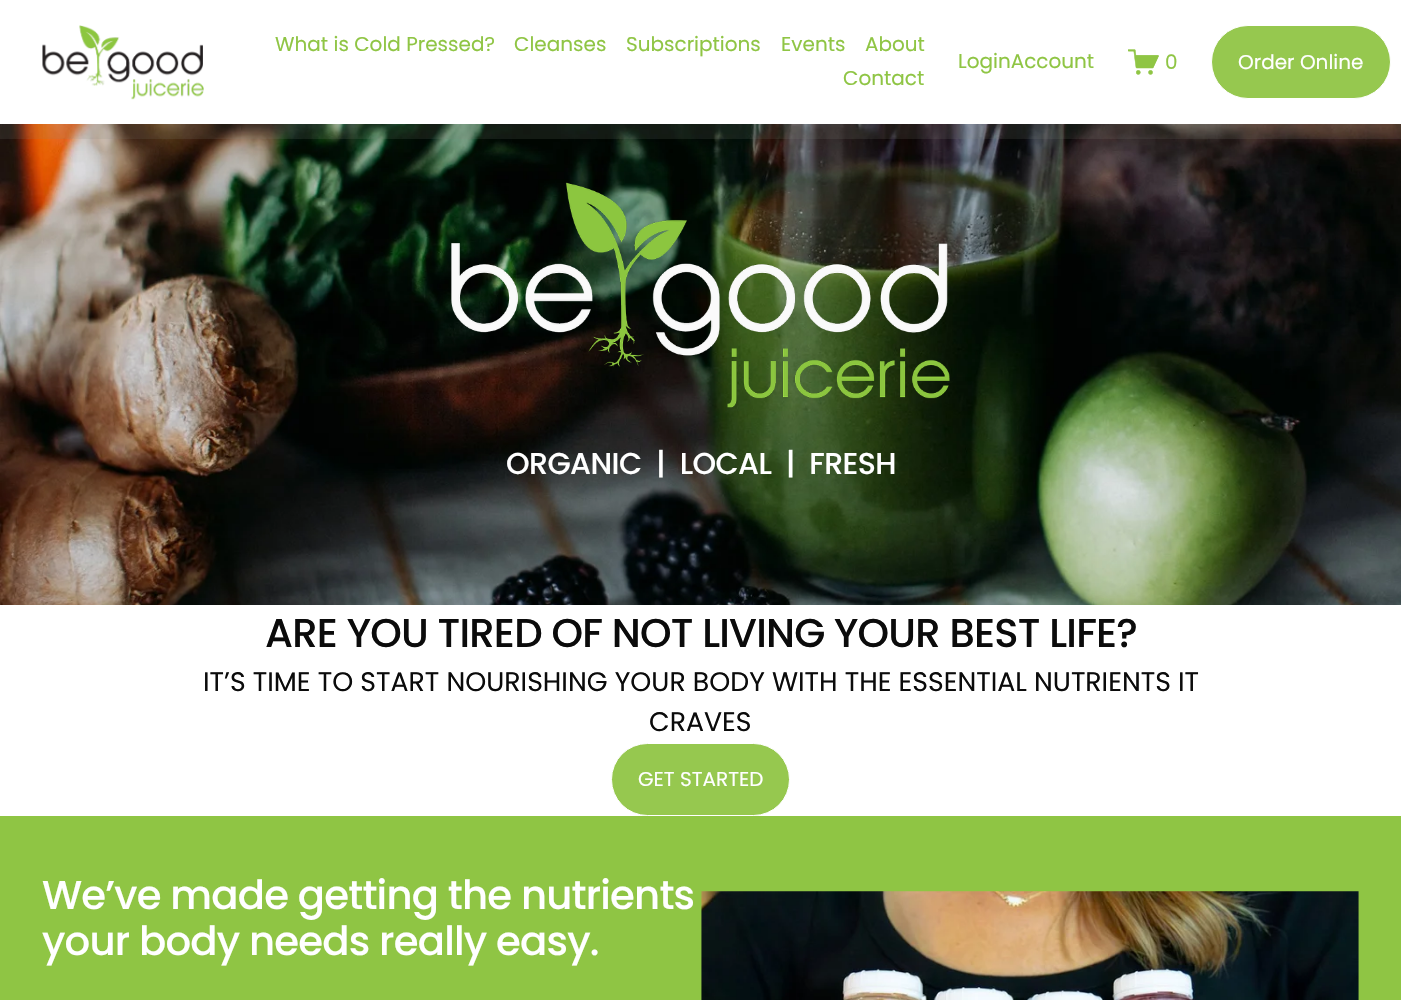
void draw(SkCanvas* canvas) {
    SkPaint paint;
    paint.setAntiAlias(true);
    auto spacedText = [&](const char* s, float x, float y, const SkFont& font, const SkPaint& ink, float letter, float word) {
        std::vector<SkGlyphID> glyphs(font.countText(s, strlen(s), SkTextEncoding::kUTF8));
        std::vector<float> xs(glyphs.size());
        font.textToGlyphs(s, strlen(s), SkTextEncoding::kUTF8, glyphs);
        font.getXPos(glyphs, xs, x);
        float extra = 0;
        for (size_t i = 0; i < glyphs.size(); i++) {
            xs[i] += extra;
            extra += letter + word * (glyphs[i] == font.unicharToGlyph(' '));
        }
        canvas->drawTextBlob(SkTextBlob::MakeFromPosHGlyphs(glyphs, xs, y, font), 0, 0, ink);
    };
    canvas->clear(0xFFFFFFFF);
    canvas->drawImageRect(SkImages::DeferredFromEncodedData(SkData::MakeFromFileName("img1.png")), SkRect::MakeXYWH(42, 25, 162, 75), SkSamplingOptions());
    SkFont font1(fontMgr->matchFamilyStyle("Poppins", SkFontStyle::Normal()), 20);
    font1.setSubpixel(true);
    paint.setColor(0xFF8FC544);
    canvas->drawString("What is Cold Pressed?", 275, 51, font1, paint);
    canvas->drawString("Cleanses", 514, 51, font1, paint);
    canvas->drawString("Subscriptions", 626, 51, font1, paint);
    canvas->drawString("Events", 781, 51, font1, paint);
    canvas->drawString("About", 865, 51, font1, paint);
    canvas->drawString("Contact", 843, 85, font1, paint);
    canvas->drawString("LoginAccount", 958, 68, font1, paint);
    canvas->drawImageRect(SkImages::DeferredFromEncodedData(SkData::MakeFromFileName("img2.png")), SkRect::MakeXYWH(1128, 49, 31, 26), SkSamplingOptions());
    canvas->drawString("0", 1165, 69, font1, paint);
    paint.setColor(0xFF96C84F);
    canvas->drawRoundRect(SkRect::MakeXYWH(1211.5f, 25.5f, 179, 73), 36.5f, 36.5f, paint);
    paint.setStyle(SkPaint::kStroke_Style);
    paint.setStrokeWidth(1);
    paint.setColor(0xFFFFFFFF);
    canvas->drawRoundRect(SkRect::MakeXYWH(1211.5f, 25.5f, 179, 73), 36.5f, 36.5f, paint);
    paint.setStyle(SkPaint::kFill_Style);
    canvas->drawString("Order Online", 1238, 69, font1, paint);
    canvas->drawImageRect(SkImages::DeferredFromEncodedData(SkData::MakeFromFileName("img3.png")), SkRect::MakeXYWH(0, 124, 1401, 481), SkSamplingOptions());
    paint.setColor(0x26828478);
    canvas->drawRect(SkRect::MakeXYWH(0, 124, 1401, 15), paint);
    canvas->drawImageRect(SkImages::DeferredFromEncodedData(SkData::MakeFromFileName("img4.png")), SkRect::MakeXYWH(451, 182, 499, 226), SkSamplingOptions());
    SkFont font2(fontMgr->matchFamilyStyle("Poppins", SkFontStyle(500, SkFontStyle::kNormal_Width, SkFontStyle::kUpright_Slant)), 30.1f);
    font2.setSubpixel(true);
    paint.setColor(0xFFFFFFFF);
    spacedText("ORGANIC  |  LOCAL  |  FRESH", 506, 474, font2, paint, -0.6f, 0);
    SkFont font3(fontMgr->matchFamilyStyle("Poppins", SkFontStyle(500, SkFontStyle::kNormal_Width, SkFontStyle::kUpright_Slant)), 40.2f);
    font3.setSubpixel(true);
    paint.setColor(0xFF0B0B0B);
    spacedText("ARE YOU TIRED OF NOT LIVING YOUR BEST LIFE?", 265, 647, font3, paint, -0.8f, 0);
    SkFont font4(fontMgr->matchFamilyStyle("Poppins", SkFontStyle::Normal()), 26.75f);
    font4.setSubpixel(true);
    canvas->drawString("IT’S TIME TO START NOURISHING YOUR BODY WITH THE ESSENTIAL NUTRIENTS IT", 203, 691, font4, paint);
    canvas->drawString("CRAVES", 649, 731, font4, paint);
    paint.setColor(0xFF96C84F);
    canvas->drawRoundRect(SkRect::MakeXYWH(611.5f, 743.5f, 178, 72), 36, 36, paint);
    paint.setStyle(SkPaint::kStroke_Style);
    paint.setColor(0xFFFFFFFF);
    canvas->drawRoundRect(SkRect::MakeXYWH(611.5f, 743.5f, 178, 72), 36, 36, paint);
    paint.setStyle(SkPaint::kFill_Style);
    canvas->drawString("GET STARTED", 638, 786, font1, paint);
    paint.setColor(0xFF8FC544);
    canvas->drawRect(SkRect::MakeXYWH(0, 816, 1401, 184), paint);
    paint.setColor(0xFFFFFFFF);
    spacedText("We’ve made getting the nutrients", 42, 909, font3, paint, -0.8f, 0);
    spacedText("your body needs really easy.", 42, 955, font3, paint, -0.8f, 0);
    canvas->drawImageRect(SkImages::DeferredFromEncodedData(SkData::MakeFromFileName("img5.png")), SkRect::MakeXYWH(701, 891, 658, 109), SkSamplingOptions());
}
